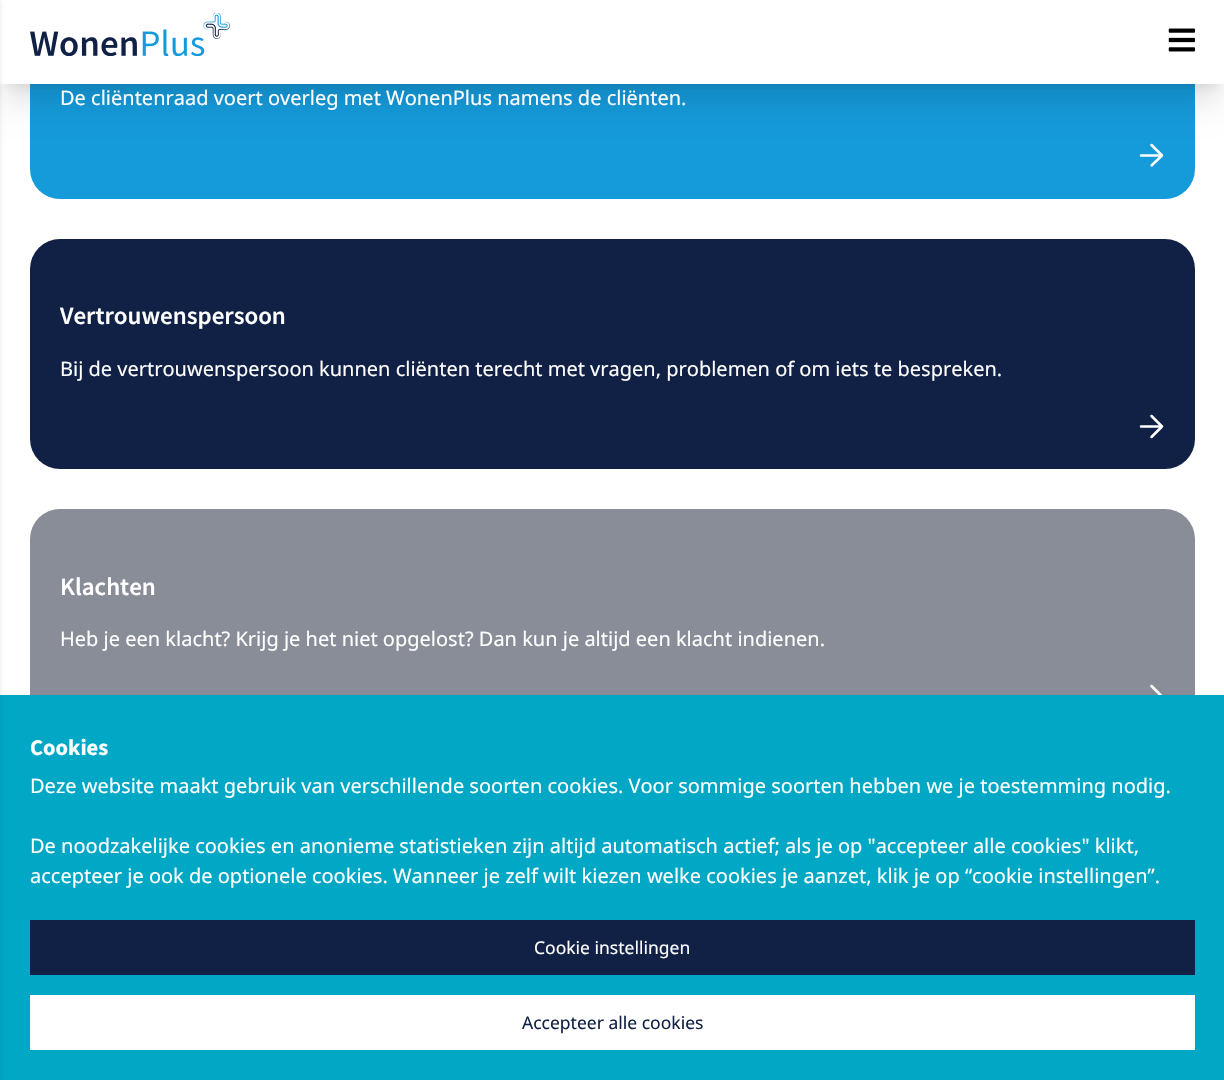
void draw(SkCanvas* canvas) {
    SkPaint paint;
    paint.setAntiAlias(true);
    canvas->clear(0xFFFFFFFF);
    paint.setColor(0xFF159ADA);
    canvas->drawRoundRect(SkRect::MakeXYWH(30, -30, 1165, 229), 30, 30, paint);
    paint.setColor(0x1A000000);
    paint.setMaskFilter(SkMaskFilter::MakeBlur(kNormal_SkBlurStyle, 6));
    canvas->drawRect(SkRect::MakeXYWH(8, 18, 1210, 68), paint);
    paint.setMaskFilter(nullptr);
    paint.setStyle(SkPaint::kStroke_Style);
    paint.setStrokeWidth(2.5f);
    paint.setStrokeCap(SkPaint::kRound_Cap);
    paint.setStrokeJoin(SkPaint::kRound_Join);
    paint.setColor(0xFFFFFFFF);
    canvas->drawPath(SkPathBuilder().moveTo(1141, 155.5f).lineTo(1162, 155.5f).moveTo(1151.5f, 145).lineTo(1162, 155.5f).lineTo(1151.5f, 165.5f).detach(), paint);
    paint.setStyle(SkPaint::kFill_Style);
    paint.setColor(0x1A000000);
    paint.setMaskFilter(SkMaskFilter::MakeBlur(kNormal_SkBlurStyle, 15.5f));
    canvas->drawRect(SkRect::MakeXYWH(6, 31, 1213, 72), paint);
    paint.setMaskFilter(nullptr);
    paint.setColor(0xFFFFFFFF);
    canvas->drawRect(SkRect::MakeXYWH(0, 0, 1224, 84), paint);
    canvas->drawImageRect(SkImages::DeferredFromEncodedData(SkData::MakeFromFileName("img1.png")), SkRect::MakeXYWH(30, 13, 200, 43), SkSamplingOptions());
    canvas->drawImageRect(SkImages::DeferredFromEncodedData(SkData::MakeFromFileName("img2.png")), SkRect::MakeXYWH(1168, 28, 27, 24), SkSamplingOptions());
    paint.setColor(0xFF898D98);
    canvas->drawRoundRect(SkRect::MakeXYWH(30, 509, 1165, 231), 30, 30, paint);
    paint.setStyle(SkPaint::kStroke_Style);
    paint.setColor(0xFFFFFFFF);
    canvas->drawPath(SkPathBuilder().moveTo(1151.5f, 686).lineTo(1162, 696.5f).lineTo(1151.5f, 707).detach(), paint);
    paint.setStyle(SkPaint::kFill_Style);
    paint.setColor(0x1A000000);
    paint.setMaskFilter(SkMaskFilter::MakeBlur(kNormal_SkBlurStyle, 2));
    canvas->drawRect(SkRect::MakeXYWH(0, 696, 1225, 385), paint);
    paint.setMaskFilter(nullptr);
    paint.setColor(0xFF00A8C6);
    canvas->drawRect(SkRect::MakeXYWH(0, 695, 1224, 385), paint);
    paint.setColor(0x1A000000);
    paint.setMaskFilter(SkMaskFilter::MakeBlur(kNormal_SkBlurStyle, 2));
    canvas->drawRect(SkRect::MakeXYWH(-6, 1, 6, 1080), paint);
    paint.setMaskFilter(nullptr);
    SkFont font1(fontMgr->matchFamilyStyle("Noto Sans", SkFontStyle::Normal()), 20);
    font1.setSubpixel(true);
    paint.setColor(0xFFFFFFFF);
    canvas->drawString("De cliëntenraad voert overleg met WonenPlus namens de cliënten.", 60, 105, font1, paint);
    paint.setColor(0xFF112146);
    canvas->drawRoundRect(SkRect::MakeXYWH(30, 239, 1165, 230), 30, 30, paint);
    SkFont font2(fontMgr->matchFamilyStyle("Source Sans Pro", SkFontStyle(600, SkFontStyle::kNormal_Width, SkFontStyle::kUpright_Slant)), 25);
    font2.setSubpixel(true);
    paint.setColor(0xFFFFFFFF);
    canvas->drawString("Vertrouwenspersoon", 60, 324, font2, paint);
    canvas->drawString("Bij de vertrouwenspersoon kunnen cliënten terecht met vragen, problemen of om iets te bespreken.", 60, 376, font1, paint);
    paint.setStyle(SkPaint::kStroke_Style);
    canvas->drawPath(SkPathBuilder().moveTo(1141, 426.5f).lineTo(1162, 426.5f).moveTo(1151.5f, 416).lineTo(1162, 426.5f).lineTo(1151.5f, 437).detach(), paint);
    paint.setStyle(SkPaint::kFill_Style);
    canvas->drawString("Klachten", 60, 595, font2, paint);
    canvas->drawString("Heb je een klacht? Krijg je het niet opgelost? Dan kun je altijd een klacht indienen.", 60, 646, font1, paint);
    SkFont font3(fontMgr->matchFamilyStyle("Source Sans Pro", SkFontStyle::Bold()), 22.5f);
    font3.setSubpixel(true);
    canvas->drawString("Cookies", 30, 755, font3, paint);
    canvas->drawString("Deze website maakt gebruik van verschillende soorten cookies. Voor sommige soorten hebben we je toestemming nodig.", 30, 793, font1, paint);
    canvas->drawString("De noodzakelijke cookies en anonieme statistieken zijn altijd automatisch actief; als je op \"accepteer alle cookies\" klikt,", 30, 853, font1, paint);
    canvas->drawString("accepteer je ook de optionele cookies. Wanneer je zelf wilt kiezen welke cookies je aanzet, klik je op “cookie instellingen”.", 30, 883, font1, paint);
    paint.setColor(0xFF112146);
    canvas->drawRect(SkRect::MakeXYWH(30, 920, 1165, 55), paint);
    SkFont font4(fontMgr->matchFamilyStyle("Noto Sans", SkFontStyle::Normal()), 17.5f);
    font4.setSubpixel(true);
    paint.setColor(0xFFFFFFFF);
    canvas->drawString("Cookie instellingen", 534, 954, font4, paint);
    canvas->drawRect(SkRect::MakeXYWH(30, 995, 1165, 55), paint);
    paint.setColor(0xFF112146);
    canvas->drawString("Accepteer alle cookies", 522, 1029, font4, paint);
}
